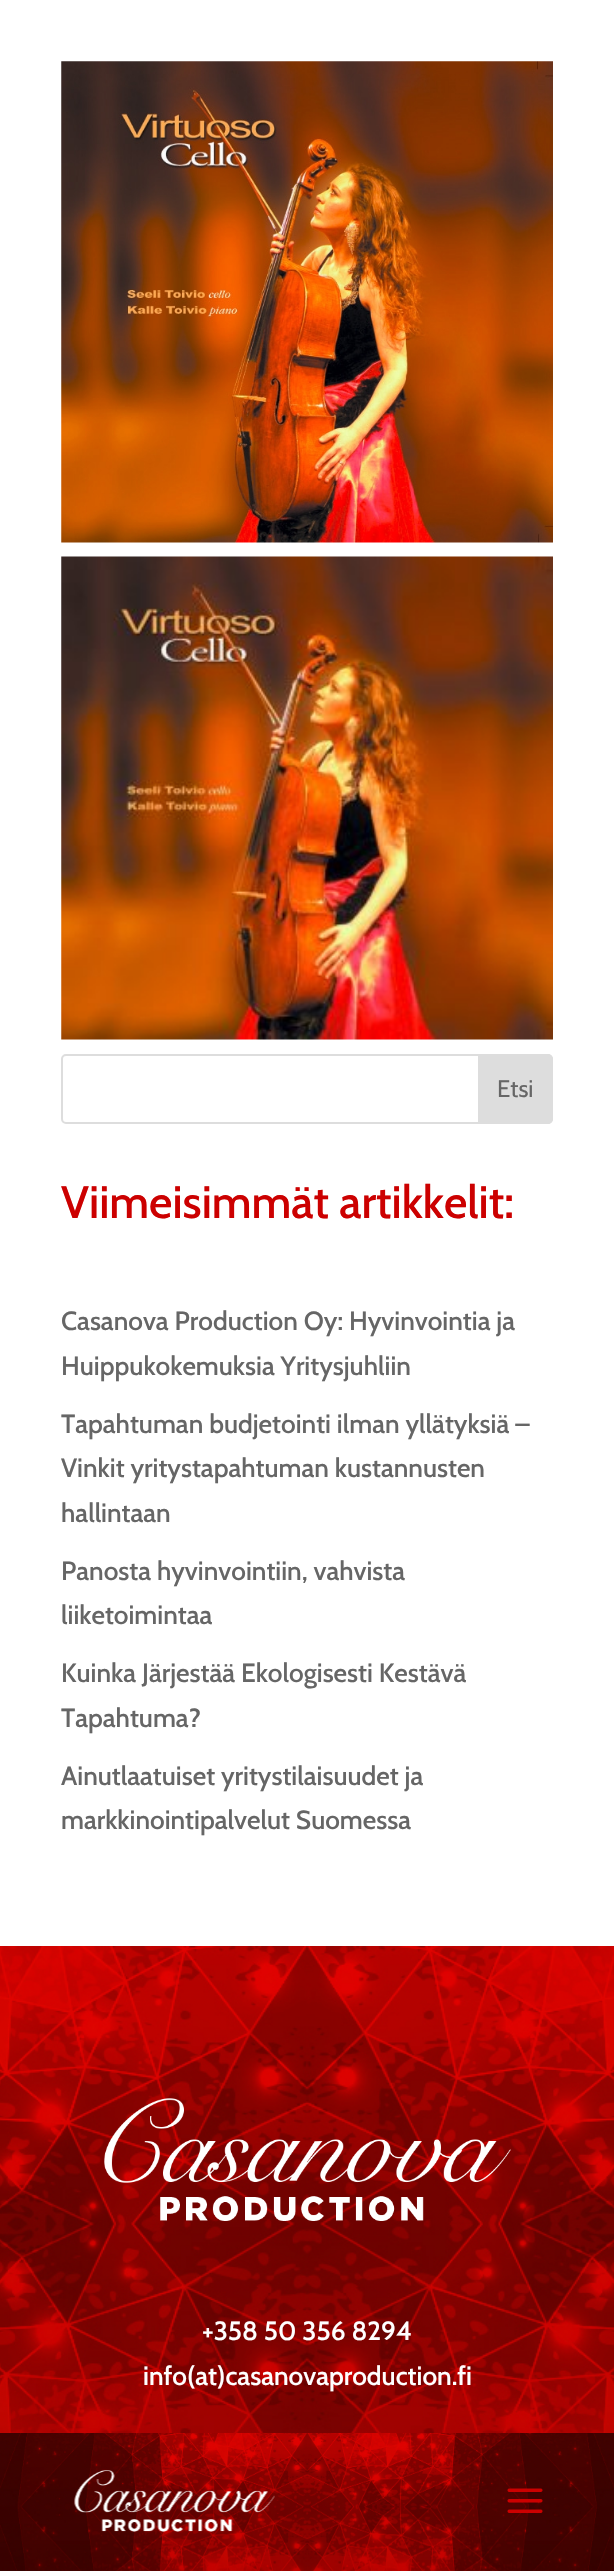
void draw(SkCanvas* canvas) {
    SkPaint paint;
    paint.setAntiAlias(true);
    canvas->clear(0xFFFFFFFF);
    canvas->drawImageRect(SkImages::DeferredFromEncodedData(SkData::MakeFromFileName("img1.png")), SkRect::MakeXYWH(61, 61, 492, 482), SkSamplingOptions());
    canvas->drawImageRect(SkImages::DeferredFromEncodedData(SkData::MakeFromFileName("img2.png")), SkRect::MakeXYWH(61, 556, 492, 484), SkSamplingOptions());
    paint.setStyle(SkPaint::kStroke_Style);
    paint.setStrokeWidth(2);
    paint.setColor(0xFFDDDDDD);
    canvas->drawRoundRect(SkRect::MakeXYWH(62, 1055, 490, 68), 4, 4, paint);
    paint.setStyle(SkPaint::kFill_Style);
    canvas->drawPath(SkPathBuilder().moveTo(479, 1055).lineTo(548, 1055).cubicTo(550, 1055, 552, 1057, 552, 1059).lineTo(552, 1119).cubicTo(552, 1121, 550, 1123, 548, 1123).lineTo(479, 1123).close().detach(), paint);
    paint.setStyle(SkPaint::kStroke_Style);
    canvas->drawPath(SkPathBuilder().moveTo(479, 1055).lineTo(548, 1055).cubicTo(550, 1055, 552, 1057, 552, 1059).lineTo(552, 1119).cubicTo(552, 1121, 550, 1123, 548, 1123).lineTo(479, 1123).close().detach(), paint);
    SkFont font1(fontMgr->matchFamilyStyle("Cabin", SkFontStyle::Normal()), 24);
    font1.setSubpixel(true);
    paint.setStyle(SkPaint::kFill_Style);
    paint.setColor(0xFF666666);
    canvas->drawString("Etsi", 497, 1097, font1, paint);
    SkFont font2(fontMgr->matchFamilyStyle("Cabin", SkFontStyle(500, SkFontStyle::kNormal_Width, SkFontStyle::kUpright_Slant)), 45.5f);
    font2.setSubpixel(true);
    paint.setColor(0xFFCC0000);
    canvas->drawString("Viimeisimmät artikkelit:", 61, 1218, font2, paint);
    SkFont font3(fontMgr->matchFamilyStyle("Cabin", SkFontStyle(500, SkFontStyle::kNormal_Width, SkFontStyle::kUpright_Slant)), 26.25f);
    font3.setSubpixel(true);
    paint.setColor(0xFF666666);
    canvas->drawString("Casanova Production Oy: Hyvinvointia ja", 61, 1330, font3, paint);
    canvas->drawString("Huippukokemuksia Yritysjuhliin", 61, 1375, font3, paint);
    canvas->drawString("Tapahtuman budjetointi ilman yllätyksiä –", 61, 1433, font3, paint);
    canvas->drawString("Vinkit yritystapahtuman kustannusten", 61, 1477, font3, paint);
    canvas->drawString("hallintaan", 61, 1522, font3, paint);
    canvas->drawString("Panosta hyvinvointiin, vahvista", 61, 1580, font3, paint);
    canvas->drawString("liiketoimintaa", 61, 1624, font3, paint);
    canvas->drawString("Kuinka Järjestää Ekologisesti Kestävä", 61, 1682, font3, paint);
    canvas->drawString("Tapahtuma?", 61, 1727, font3, paint);
    canvas->drawString("Ainutlaatuiset yritystilaisuudet ja", 61, 1785, font3, paint);
    canvas->drawString("markkinointipalvelut Suomessa", 61, 1829, font3, paint);
    canvas->drawImageRect(SkImages::DeferredFromEncodedData(SkData::MakeFromFileName("img3.png")), SkRect::MakeXYWH(0, 1946, 614, 487), SkSamplingOptions());
    canvas->drawImageRect(SkImages::DeferredFromEncodedData(SkData::MakeFromFileName("img4.png")), SkRect::MakeXYWH(104, 2098, 407, 123), SkSamplingOptions());
    paint.setColor(0xFFFFFFFF);
    canvas->drawString("+358 50 356 8294", 202, 2340, font3, paint);
    canvas->drawString("info(at)casanovaproduction.fi", 143, 2385, font3, paint);
    canvas->drawImageRect(SkImages::DeferredFromEncodedData(SkData::MakeFromFileName("img5.png")), SkRect::MakeXYWH(0, 2433, 614, 138), SkSamplingOptions());
    canvas->drawImageRect(SkImages::DeferredFromEncodedData(SkData::MakeFromFileName("img6.png")), SkRect::MakeXYWH(74, 2470, 201, 62), SkSamplingOptions());
    canvas->drawImageRect(SkImages::DeferredFromEncodedData(SkData::MakeFromFileName("img7.png")), SkRect::MakeXYWH(507, 2488, 36, 25), SkSamplingOptions());
}
